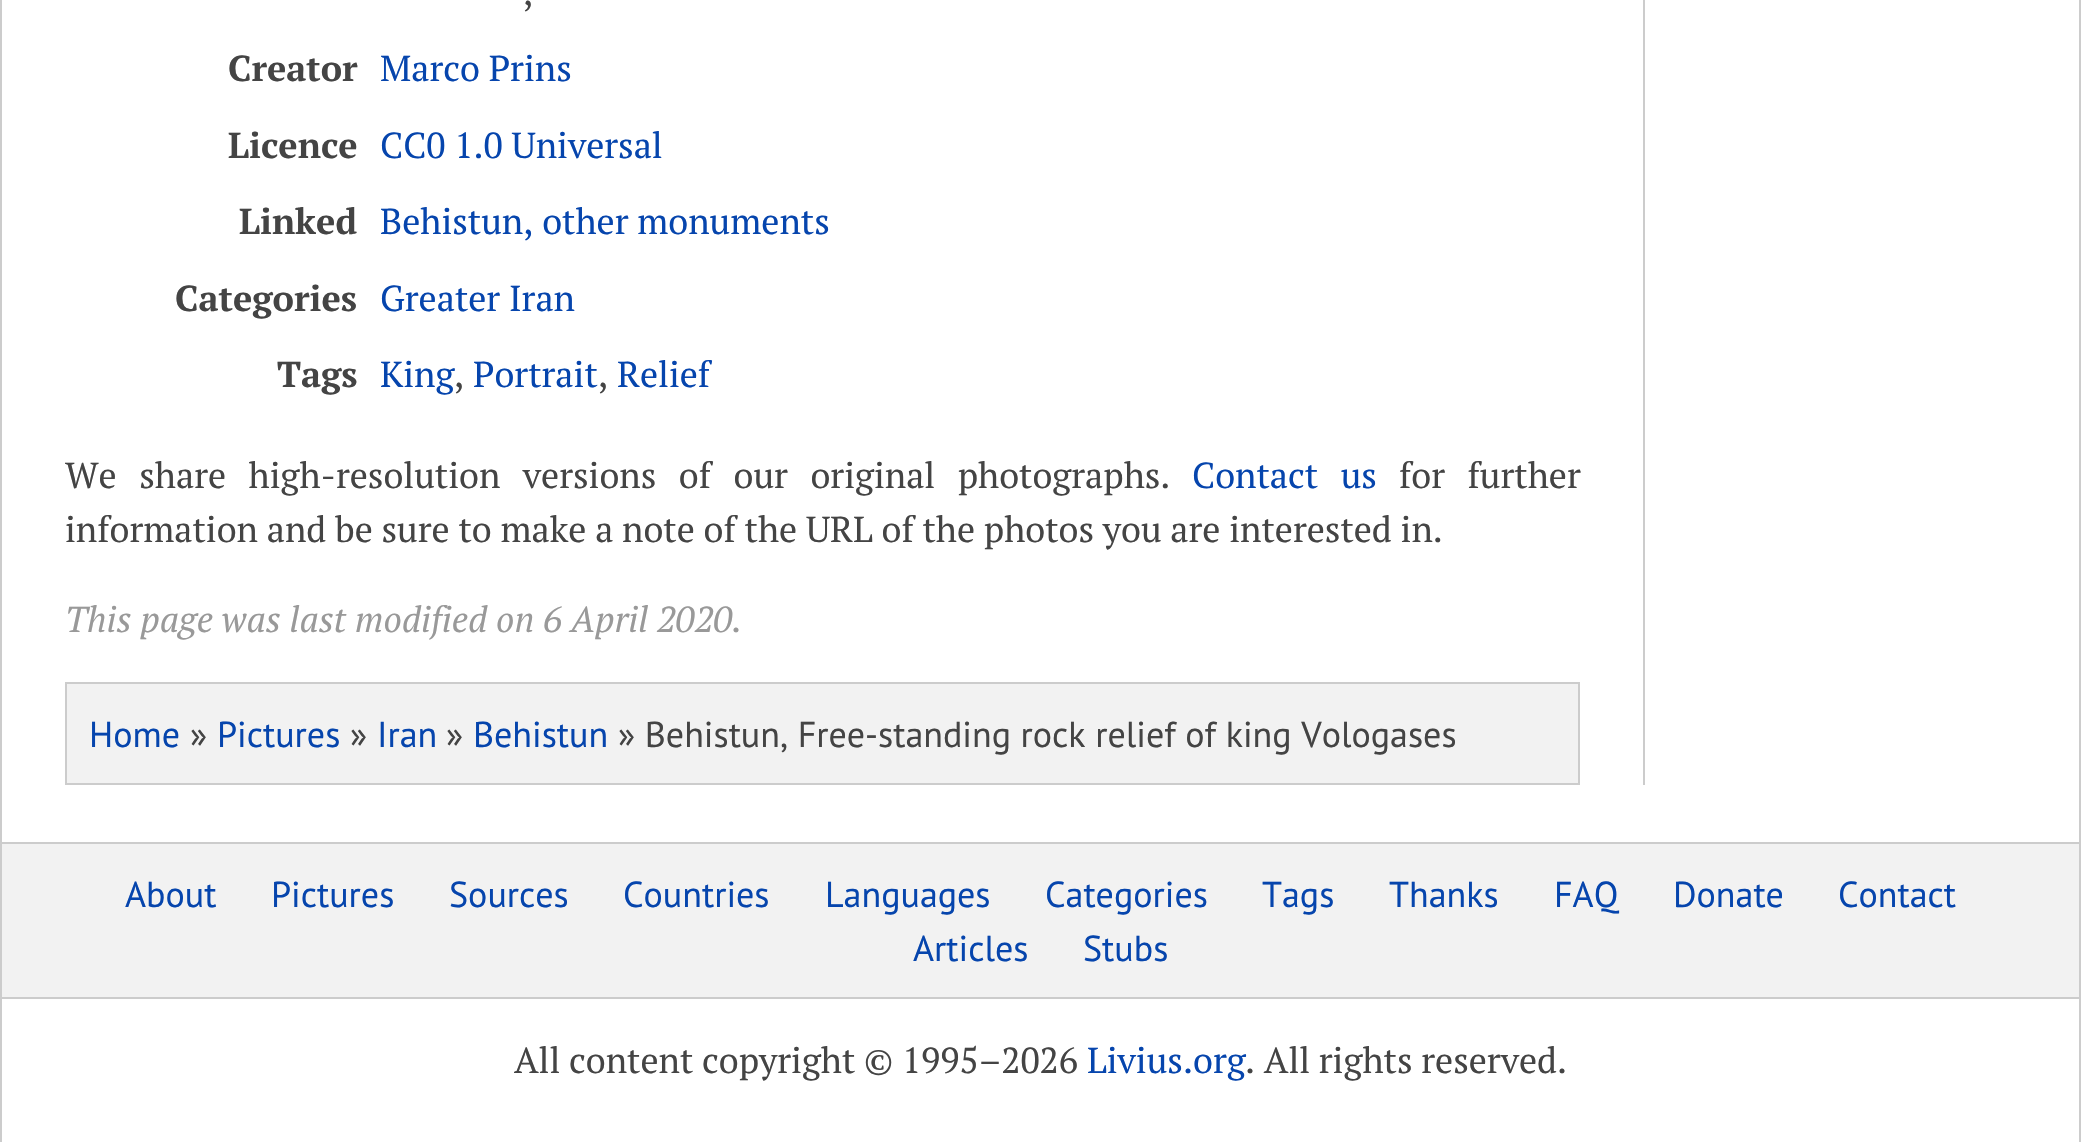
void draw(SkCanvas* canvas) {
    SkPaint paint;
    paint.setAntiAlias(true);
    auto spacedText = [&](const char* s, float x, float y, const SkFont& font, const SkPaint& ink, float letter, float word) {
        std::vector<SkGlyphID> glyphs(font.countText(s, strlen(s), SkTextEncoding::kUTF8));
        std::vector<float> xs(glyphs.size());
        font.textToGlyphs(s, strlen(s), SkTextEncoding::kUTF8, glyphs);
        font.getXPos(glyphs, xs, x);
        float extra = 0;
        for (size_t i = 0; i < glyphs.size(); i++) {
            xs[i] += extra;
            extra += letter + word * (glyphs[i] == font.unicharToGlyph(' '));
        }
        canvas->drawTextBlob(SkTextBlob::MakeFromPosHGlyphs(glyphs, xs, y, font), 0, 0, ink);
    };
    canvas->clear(0xFFFFFFFF);
    paint.setColor(0xFFCCCCCC);
    canvas->drawRect(SkRect::MakeXYWH(2079, 0, 2, 1142), paint);
    canvas->drawRect(SkRect::MakeXYWH(0, 0, 2, 1142), paint);
    canvas->drawRect(SkRect::MakeXYWH(1643, 0, 2, 785), paint);
    SkFont font1(fontMgr->matchFamilyStyle("PT Serif", SkFontStyle::Normal()), 36);
    font1.setSubpixel(true);
    paint.setColor(0xFF444444);
    canvas->drawString(",", 523, 5, font1, paint);
    SkFont font2(fontMgr->matchFamilyStyle("PT Serif", SkFontStyle::Bold()), 36);
    font2.setSubpixel(true);
    canvas->drawString("Creator", 228, 81, font2, paint);
    paint.setColor(0xFF0645AD);
    canvas->drawString("Marco Prins", 380, 81, font1, paint);
    paint.setColor(0xFF444444);
    canvas->drawString("Licence", 228, 158, font2, paint);
    paint.setColor(0xFF0645AD);
    canvas->drawString("CC0 1.0 Universal", 380, 158, font1, paint);
    paint.setColor(0xFF444444);
    canvas->drawString("Linked", 239, 234, font2, paint);
    paint.setColor(0xFF0645AD);
    canvas->drawString("Behistun, other monuments", 380, 234, font1, paint);
    paint.setColor(0xFF444444);
    canvas->drawString("Categories", 175, 311, font2, paint);
    paint.setColor(0xFF0645AD);
    canvas->drawString("Greater Iran", 380, 311, font1, paint);
    paint.setColor(0xFF444444);
    canvas->drawString("Tags", 277, 387, font2, paint);
    paint.setColor(0xFF0645AD);
    canvas->drawString("King", 380, 387, font1, paint);
    paint.setColor(0xFF444444);
    canvas->drawString(",", 454, 387, font1, paint);
    paint.setColor(0xFF0645AD);
    canvas->drawString("Portrait", 473, 387, font1, paint);
    paint.setColor(0xFF444444);
    canvas->drawString(",", 598, 387, font1, paint);
    paint.setColor(0xFF0645AD);
    canvas->drawString("Relief", 617, 387, font1, paint);
    paint.setColor(0xFF444444);
    spacedText("We share high-resolution versions of our original photographs.", 65, 488, font1, paint, 0, 13.75f);
    paint.setColor(0xFF0645AD);
    spacedText("Contact us", 1192, 488, font1, paint, 0, 13.75f);
    paint.setColor(0xFF444444);
    spacedText("for further", 1399, 488, font1, paint, 0, 13.75f);
    canvas->drawString("information and be sure to make a note of the URL of the photos you are interested in.", 65, 542, font1, paint);
    SkFont font3(fontMgr->matchFamilyStyle("PT Serif", SkFontStyle::Italic()), 36);
    font3.setSubpixel(true);
    paint.setColor(0xFF999999);
    canvas->drawString("This page was last modified on 6 April 2020.", 65, 632, font3, paint);
    paint.setColor(0xFFF2F2F2);
    canvas->drawRect(SkRect::MakeXYWH(66, 683, 1513, 101), paint);
    paint.setStyle(SkPaint::kStroke_Style);
    paint.setStrokeWidth(2);
    paint.setColor(0xFFCCCCCC);
    canvas->drawRect(SkRect::MakeXYWH(66, 683, 1513, 101), paint);
    SkFont font4(fontMgr->matchFamilyStyle("PT Sans", SkFontStyle::Normal()), 36);
    font4.setSubpixel(true);
    paint.setStyle(SkPaint::kFill_Style);
    paint.setColor(0xFF0645AD);
    canvas->drawString("Home", 89, 747, font4, paint);
    paint.setColor(0xFF444444);
    canvas->drawString("»", 190, 747, font4, paint);
    paint.setColor(0xFF0645AD);
    canvas->drawString("Pictures", 217, 747, font4, paint);
    paint.setColor(0xFF444444);
    canvas->drawString("»", 350, 747, font4, paint);
    paint.setColor(0xFF0645AD);
    canvas->drawString("Iran", 377, 747, font4, paint);
    paint.setColor(0xFF444444);
    canvas->drawString("»", 446, 747, font4, paint);
    paint.setColor(0xFF0645AD);
    canvas->drawString("Behistun", 473, 747, font4, paint);
    paint.setColor(0xFF444444);
    canvas->drawString("» Behistun, Free-standing rock relief of king Vologases", 618, 747, font4, paint);
    paint.setColor(0xFFF2F2F2);
    canvas->drawRect(SkRect::MakeXYWH(2, 844, 2077, 153), paint);
    paint.setColor(0xFFCCCCCC);
    canvas->drawRect(SkRect::MakeXYWH(2, 842, 2077, 2), paint);
    canvas->drawRect(SkRect::MakeXYWH(2, 997, 2077, 2), paint);
    paint.setColor(0xFF0645AD);
    canvas->drawString("About", 125, 907, font4, paint);
    canvas->drawString("Pictures", 271, 907, font4, paint);
    canvas->drawString("Sources", 449, 907, font4, paint);
    canvas->drawString("Countries", 623, 907, font4, paint);
    canvas->drawString("Languages", 825, 907, font4, paint);
    canvas->drawString("Categories", 1045, 907, font4, paint);
    canvas->drawString("Tags", 1262, 907, font4, paint);
    canvas->drawString("Thanks", 1389, 907, font4, paint);
    canvas->drawString("FAQ", 1554, 907, font4, paint);
    canvas->drawString("Donate", 1673, 907, font4, paint);
    canvas->drawString("Contact", 1838, 907, font4, paint);
    canvas->drawString("Articles", 913, 961, font4, paint);
    canvas->drawString("Stubs", 1083, 961, font4, paint);
    paint.setColor(0xFF444444);
    canvas->drawString("All content copyright © 1995–2026", 514, 1073, font1, paint);
    paint.setColor(0xFF0645AD);
    canvas->drawString("Livius.org", 1087, 1073, font1, paint);
    paint.setColor(0xFF444444);
    canvas->drawString(". All rights reserved.", 1245, 1073, font1, paint);
}
